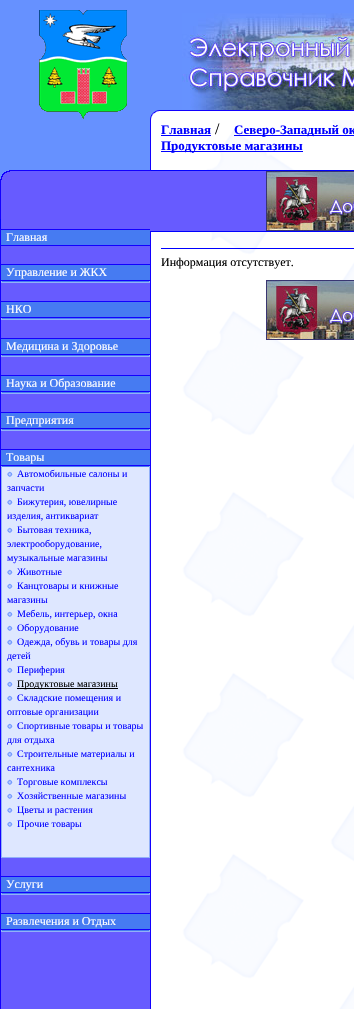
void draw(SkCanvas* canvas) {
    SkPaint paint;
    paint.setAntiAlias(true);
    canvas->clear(0xFF6691FF);
    canvas->drawImageRect(SkImages::DeferredFromEncodedData(SkData::MakeFromFileName("img1.png")), SkRect::MakeXYWH(39, 10, 88, 109), SkSamplingOptions());
    canvas->drawImageRect(SkImages::DeferredFromEncodedData(SkData::MakeFromFileName("img2.png")), SkRect::MakeXYWH(182, 13, 172, 97), SkSamplingOptions());
    canvas->drawImageRect(SkImages::DeferredFromEncodedData(SkData::MakeFromFileName("img3.png")), SkRect::MakeXYWH(150, 110, 204, 10), SkSamplingOptions());
    canvas->drawImageRect(SkImages::DeferredFromEncodedData(SkData::MakeFromFileName("img4.png")), SkRect::MakeXYWH(151, 120, 203, 889), SkSamplingOptions());
    paint.setColor(0xFF1200FF);
    canvas->drawRect(SkRect::MakeXYWH(150, 120, 1, 889), paint);
    SkFont font1(fontMgr->matchFamilyStyle("Liberation Serif", SkFontStyle::Bold()), 13);
    font1.setSubpixel(true);
    paint.setColor(0xFF0000FF);
    canvas->drawString("Главная", 161, 134, font1, paint);
    canvas->drawRect(SkRect::MakeXYWH(161, 135, 50, 1), paint);
    SkFont font2(fontMgr->matchFamilyStyle("Liberation Serif", SkFontStyle::Normal()), 16);
    font2.setSubpixel(true);
    paint.setColor(0xFF000000);
    canvas->drawString("/", 215, 134, font2, paint);
    paint.setColor(0xFF0000FF);
    canvas->drawRect(SkRect::MakeXYWH(234, 135, 120, 1), paint);
    canvas->drawString("Северо-Западный ок", 234, 134, font1, paint);
    canvas->drawRect(SkRect::MakeXYWH(161, 151, 142, 1), paint);
    canvas->drawString("Продуктовые магазины", 161, 150, font1, paint);
    paint.setColor(0xFF675BFF);
    canvas->drawRect(SkRect::MakeXYWH(150, 171, 116, 60), paint);
    paint.setColor(0xFF0000FF);
    canvas->drawRect(SkRect::MakeXYWH(151, 170, 203, 1), paint);
    canvas->drawImageRect(SkImages::DeferredFromEncodedData(SkData::MakeFromFileName("img5.png")), SkRect::MakeXYWH(266, 171, 88, 60), SkSamplingOptions());
    canvas->drawRect(SkRect::MakeXYWH(151, 231, 203, 1), paint);
    canvas->drawRect(SkRect::MakeXYWH(161, 248, 193, 1), paint);
    SkFont font3(fontMgr->matchFamilyStyle("Liberation Serif", SkFontStyle::Normal()), 12);
    font3.setSubpixel(true);
    paint.setColor(0xFF000000);
    canvas->drawString("Информация отсутствует.", 161, 266, font3, paint);
    canvas->drawImageRect(SkImages::DeferredFromEncodedData(SkData::MakeFromFileName("img5.png")), SkRect::MakeXYWH(266, 280, 88, 60), SkSamplingOptions());
    canvas->drawImageRect(SkImages::DeferredFromEncodedData(SkData::MakeFromFileName("img6.png")), SkRect::MakeXYWH(0, 170, 150, 13), SkSamplingOptions());
    paint.setColor(0xFF1200FF);
    canvas->drawRect(SkRect::MakeXYWH(0, 183, 1, 36), paint);
    paint.setColor(0xFF675BFF);
    canvas->drawRect(SkRect::MakeXYWH(1, 183, 149, 46), paint);
    paint.setColor(0xFF0000FF);
    canvas->drawRect(SkRect::MakeXYWH(0, 219, 1, 10), paint);
    paint.setColor(0xFF1200FF);
    canvas->drawRect(SkRect::MakeXYWH(0, 229, 1, 780), paint);
    paint.setColor(0xFF675BFF);
    canvas->drawRect(SkRect::MakeXYWH(1, 246, 149, 18), paint);
    paint.setColor(0xFF467BF2);
    canvas->drawRect(SkRect::MakeXYWH(1, 230, 149, 15), paint);
    paint.setColor(0xFF1200FF);
    canvas->drawRect(SkRect::MakeXYWH(1, 229, 149, 1), paint);
    paint.setColor(0xFFFFFFFF);
    canvas->drawString("Главная", 6, 241, font3, paint);
    paint.setColor(0xFF1200FF);
    canvas->drawRect(SkRect::MakeXYWH(1, 245, 149, 1), paint);
    paint.setColor(0xFF675BFF);
    canvas->drawRect(SkRect::MakeXYWH(1, 283, 149, 18), paint);
    paint.setColor(0xFF467BF2);
    canvas->drawRect(SkRect::MakeXYWH(1, 265, 149, 15), paint);
    paint.setColor(0xFF1200FF);
    canvas->drawRect(SkRect::MakeXYWH(1, 264, 149, 1), paint);
    paint.setColor(0xFFFFFFFF);
    canvas->drawString("Управление и ЖКХ", 6, 276, font3, paint);
    paint.setColor(0xFF1200FF);
    canvas->drawRect(SkRect::MakeXYWH(1, 280, 149, 1), paint);
    paint.setColor(0xFF467BF2);
    canvas->drawRect(SkRect::MakeXYWH(1, 281, 149, 1), paint);
    paint.setColor(0xFF92B1F8);
    canvas->drawRect(SkRect::MakeXYWH(149, 281, 1, 2), paint);
    canvas->drawRect(SkRect::MakeXYWH(1, 282, 149, 1), paint);
    canvas->drawRect(SkRect::MakeXYWH(1, 281, 1, 2), paint);
    paint.setColor(0xFF675BFF);
    canvas->drawRect(SkRect::MakeXYWH(1, 320, 149, 18), paint);
    paint.setColor(0xFF467BF2);
    canvas->drawRect(SkRect::MakeXYWH(1, 302, 149, 15), paint);
    paint.setColor(0xFF1200FF);
    canvas->drawRect(SkRect::MakeXYWH(1, 301, 149, 1), paint);
    paint.setColor(0xFFFFFFFF);
    canvas->drawString("НКО", 6, 313, font3, paint);
    paint.setColor(0xFF1200FF);
    canvas->drawRect(SkRect::MakeXYWH(1, 317, 149, 1), paint);
    paint.setColor(0xFF467BF2);
    canvas->drawRect(SkRect::MakeXYWH(1, 318, 149, 1), paint);
    paint.setColor(0xFF92B1F8);
    canvas->drawRect(SkRect::MakeXYWH(149, 318, 1, 2), paint);
    canvas->drawRect(SkRect::MakeXYWH(1, 319, 149, 1), paint);
    canvas->drawRect(SkRect::MakeXYWH(1, 318, 1, 2), paint);
    paint.setColor(0xFF675BFF);
    canvas->drawRect(SkRect::MakeXYWH(1, 357, 149, 18), paint);
    paint.setColor(0xFF467BF2);
    canvas->drawRect(SkRect::MakeXYWH(1, 339, 149, 15), paint);
    paint.setColor(0xFF1200FF);
    canvas->drawRect(SkRect::MakeXYWH(1, 338, 149, 1), paint);
    paint.setColor(0xFFFFFFFF);
    canvas->drawString("Медицина и Здоровье", 6, 350, font3, paint);
    paint.setColor(0xFF1200FF);
    canvas->drawRect(SkRect::MakeXYWH(1, 354, 149, 1), paint);
    paint.setColor(0xFF467BF2);
    canvas->drawRect(SkRect::MakeXYWH(1, 355, 149, 1), paint);
    paint.setColor(0xFF92B1F8);
    canvas->drawRect(SkRect::MakeXYWH(149, 355, 1, 2), paint);
    canvas->drawRect(SkRect::MakeXYWH(1, 356, 149, 1), paint);
    canvas->drawRect(SkRect::MakeXYWH(1, 355, 1, 2), paint);
    paint.setColor(0xFF675BFF);
    canvas->drawRect(SkRect::MakeXYWH(1, 394, 149, 18), paint);
    paint.setColor(0xFF467BF2);
    canvas->drawRect(SkRect::MakeXYWH(1, 376, 149, 15), paint);
    paint.setColor(0xFF1200FF);
    canvas->drawRect(SkRect::MakeXYWH(1, 375, 149, 1), paint);
    paint.setColor(0xFFFFFFFF);
    canvas->drawString("Наука и Образование", 6, 387, font3, paint);
    paint.setColor(0xFF1200FF);
    canvas->drawRect(SkRect::MakeXYWH(1, 391, 149, 1), paint);
    paint.setColor(0xFF467BF2);
    canvas->drawRect(SkRect::MakeXYWH(1, 392, 149, 1), paint);
    paint.setColor(0xFF92B1F8);
    canvas->drawRect(SkRect::MakeXYWH(149, 392, 1, 2), paint);
    canvas->drawRect(SkRect::MakeXYWH(1, 393, 149, 1), paint);
    canvas->drawRect(SkRect::MakeXYWH(1, 392, 1, 2), paint);
    paint.setColor(0xFF675BFF);
    canvas->drawRect(SkRect::MakeXYWH(1, 431, 149, 18), paint);
    paint.setColor(0xFF467BF2);
    canvas->drawRect(SkRect::MakeXYWH(1, 413, 149, 15), paint);
    paint.setColor(0xFF1200FF);
    canvas->drawRect(SkRect::MakeXYWH(1, 412, 149, 1), paint);
    paint.setColor(0xFFFFFFFF);
    canvas->drawString("Предприятия", 6, 424, font3, paint);
    paint.setColor(0xFF1200FF);
    canvas->drawRect(SkRect::MakeXYWH(1, 428, 149, 1), paint);
    paint.setColor(0xFF467BF2);
    canvas->drawRect(SkRect::MakeXYWH(1, 429, 149, 1), paint);
    paint.setColor(0xFF92B1F8);
    canvas->drawRect(SkRect::MakeXYWH(149, 429, 1, 2), paint);
    canvas->drawRect(SkRect::MakeXYWH(1, 430, 149, 1), paint);
    canvas->drawRect(SkRect::MakeXYWH(1, 429, 1, 2), paint);
    paint.setColor(0xFF675BFF);
    canvas->drawRect(SkRect::MakeXYWH(1, 858, 149, 18), paint);
    paint.setColor(0xFF467BF2);
    canvas->drawRect(SkRect::MakeXYWH(1, 450, 149, 15), paint);
    paint.setColor(0xFF1200FF);
    canvas->drawRect(SkRect::MakeXYWH(1, 449, 149, 1), paint);
    paint.setColor(0xFFFFFFFF);
    canvas->drawString("Товары", 6, 461, font3, paint);
    paint.setColor(0xFF1200FF);
    canvas->drawRect(SkRect::MakeXYWH(1, 465, 149, 1), paint);
    paint.setColor(0xFFDEE7FF);
    canvas->drawRect(SkRect::MakeXYWH(2, 467, 147, 390), paint);
    paint.setColor(0xFF467BF2);
    canvas->drawRect(SkRect::MakeXYWH(1, 466, 149, 1), paint);
    paint.setColor(0xFF92B1F8);
    canvas->drawRect(SkRect::MakeXYWH(149, 466, 1, 392), paint);
    canvas->drawRect(SkRect::MakeXYWH(1, 857, 149, 1), paint);
    canvas->drawRect(SkRect::MakeXYWH(1, 466, 1, 392), paint);
    canvas->drawImageRect(SkImages::DeferredFromEncodedData(SkData::MakeFromFileName("img7.png")), SkRect::MakeXYWH(7, 471, 6, 6), SkSamplingOptions());
    SkFont font4(fontMgr->matchFamilyStyle("Liberation Serif", SkFontStyle::Normal()), 10);
    font4.setSubpixel(true);
    paint.setColor(0xFF0000FF);
    canvas->drawString("Автомобильные салоны и", 17, 477, font4, paint);
    canvas->drawString("запчасти", 7, 491, font4, paint);
    canvas->drawImageRect(SkImages::DeferredFromEncodedData(SkData::MakeFromFileName("img7.png")), SkRect::MakeXYWH(7, 499, 6, 6), SkSamplingOptions());
    canvas->drawString("Бижутерия, ювелирные", 17, 505, font4, paint);
    canvas->drawString("изделия, антиквариат", 7, 519, font4, paint);
    canvas->drawImageRect(SkImages::DeferredFromEncodedData(SkData::MakeFromFileName("img7.png")), SkRect::MakeXYWH(7, 527, 6, 6), SkSamplingOptions());
    canvas->drawString("Бытовая техника,", 17, 533, font4, paint);
    canvas->drawString("электрооборудование,", 7, 547, font4, paint);
    canvas->drawString("музыкальные магазины", 7, 561, font4, paint);
    canvas->drawImageRect(SkImages::DeferredFromEncodedData(SkData::MakeFromFileName("img7.png")), SkRect::MakeXYWH(7, 569, 6, 6), SkSamplingOptions());
    canvas->drawString("Животные", 17, 575, font4, paint);
    canvas->drawImageRect(SkImages::DeferredFromEncodedData(SkData::MakeFromFileName("img7.png")), SkRect::MakeXYWH(7, 583, 6, 6), SkSamplingOptions());
    canvas->drawString("Канцтовары и книжные", 17, 589, font4, paint);
    canvas->drawString("магазины", 7, 603, font4, paint);
    canvas->drawImageRect(SkImages::DeferredFromEncodedData(SkData::MakeFromFileName("img7.png")), SkRect::MakeXYWH(7, 611, 6, 6), SkSamplingOptions());
    canvas->drawString("Мебель, интерьер, окна", 17, 617, font4, paint);
    canvas->drawImageRect(SkImages::DeferredFromEncodedData(SkData::MakeFromFileName("img7.png")), SkRect::MakeXYWH(7, 625, 6, 6), SkSamplingOptions());
    canvas->drawString("Оборудование", 17, 631, font4, paint);
    canvas->drawImageRect(SkImages::DeferredFromEncodedData(SkData::MakeFromFileName("img7.png")), SkRect::MakeXYWH(7, 639, 6, 6), SkSamplingOptions());
    canvas->drawString("Одежда, обувь и товары для", 17, 645, font4, paint);
    canvas->drawString("детей", 7, 659, font4, paint);
    canvas->drawImageRect(SkImages::DeferredFromEncodedData(SkData::MakeFromFileName("img7.png")), SkRect::MakeXYWH(7, 667, 6, 6), SkSamplingOptions());
    canvas->drawString("Периферия", 17, 673, font4, paint);
    canvas->drawImageRect(SkImages::DeferredFromEncodedData(SkData::MakeFromFileName("img7.png")), SkRect::MakeXYWH(7, 681, 6, 6), SkSamplingOptions());
    paint.setColor(0xFF000000);
    canvas->drawRect(SkRect::MakeXYWH(17, 688, 101, 1), paint);
    canvas->drawString("Продуктовые магазины", 17, 687, font4, paint);
    canvas->drawImageRect(SkImages::DeferredFromEncodedData(SkData::MakeFromFileName("img7.png")), SkRect::MakeXYWH(7, 695, 6, 6), SkSamplingOptions());
    paint.setColor(0xFF0000FF);
    canvas->drawString("Складские помещения и", 17, 701, font4, paint);
    canvas->drawString("оптовые организации", 7, 715, font4, paint);
    canvas->drawImageRect(SkImages::DeferredFromEncodedData(SkData::MakeFromFileName("img7.png")), SkRect::MakeXYWH(7, 723, 6, 6), SkSamplingOptions());
    canvas->drawString("Спортивные товары и товары", 17, 729, font4, paint);
    canvas->drawString("для отдыха", 7, 743, font4, paint);
    canvas->drawImageRect(SkImages::DeferredFromEncodedData(SkData::MakeFromFileName("img7.png")), SkRect::MakeXYWH(7, 751, 6, 6), SkSamplingOptions());
    canvas->drawString("Строительные материалы и", 17, 757, font4, paint);
    canvas->drawString("сантехника", 7, 771, font4, paint);
    canvas->drawImageRect(SkImages::DeferredFromEncodedData(SkData::MakeFromFileName("img7.png")), SkRect::MakeXYWH(7, 779, 6, 6), SkSamplingOptions());
    canvas->drawString("Торговые комплексы", 17, 785, font4, paint);
    canvas->drawImageRect(SkImages::DeferredFromEncodedData(SkData::MakeFromFileName("img7.png")), SkRect::MakeXYWH(7, 793, 6, 6), SkSamplingOptions());
    canvas->drawString("Хозяйственные магазины", 17, 799, font4, paint);
    canvas->drawImageRect(SkImages::DeferredFromEncodedData(SkData::MakeFromFileName("img7.png")), SkRect::MakeXYWH(7, 807, 6, 6), SkSamplingOptions());
    canvas->drawString("Цветы и растения", 17, 813, font4, paint);
    canvas->drawImageRect(SkImages::DeferredFromEncodedData(SkData::MakeFromFileName("img7.png")), SkRect::MakeXYWH(7, 821, 6, 6), SkSamplingOptions());
    canvas->drawString("Прочие товары", 17, 827, font4, paint);
    paint.setColor(0xFF675BFF);
    canvas->drawRect(SkRect::MakeXYWH(1, 895, 149, 18), paint);
    paint.setColor(0xFF467BF2);
    canvas->drawRect(SkRect::MakeXYWH(1, 877, 149, 15), paint);
    paint.setColor(0xFF1200FF);
    canvas->drawRect(SkRect::MakeXYWH(1, 876, 149, 1), paint);
    paint.setColor(0xFFFFFFFF);
    canvas->drawString("Услуги", 6, 888, font3, paint);
    paint.setColor(0xFF1200FF);
    canvas->drawRect(SkRect::MakeXYWH(1, 892, 149, 1), paint);
    paint.setColor(0xFF467BF2);
    canvas->drawRect(SkRect::MakeXYWH(1, 893, 149, 1), paint);
    paint.setColor(0xFF92B1F8);
    canvas->drawRect(SkRect::MakeXYWH(149, 893, 1, 2), paint);
    canvas->drawRect(SkRect::MakeXYWH(1, 894, 149, 1), paint);
    canvas->drawRect(SkRect::MakeXYWH(1, 893, 1, 2), paint);
    paint.setColor(0xFF675BFF);
    canvas->drawRect(SkRect::MakeXYWH(1, 932, 149, 77), paint);
    paint.setColor(0xFF467BF2);
    canvas->drawRect(SkRect::MakeXYWH(1, 914, 149, 15), paint);
    paint.setColor(0xFF1200FF);
    canvas->drawRect(SkRect::MakeXYWH(1, 913, 149, 1), paint);
    paint.setColor(0xFFFFFFFF);
    canvas->drawString("Развлечения и Отдых", 6, 925, font3, paint);
    paint.setColor(0xFF1200FF);
    canvas->drawRect(SkRect::MakeXYWH(1, 929, 149, 1), paint);
    paint.setColor(0xFF467BF2);
    canvas->drawRect(SkRect::MakeXYWH(1, 930, 149, 1), paint);
    paint.setColor(0xFF92B1F8);
    canvas->drawRect(SkRect::MakeXYWH(149, 930, 1, 2), paint);
    canvas->drawRect(SkRect::MakeXYWH(1, 931, 149, 1), paint);
    canvas->drawRect(SkRect::MakeXYWH(1, 930, 1, 2), paint);
}
